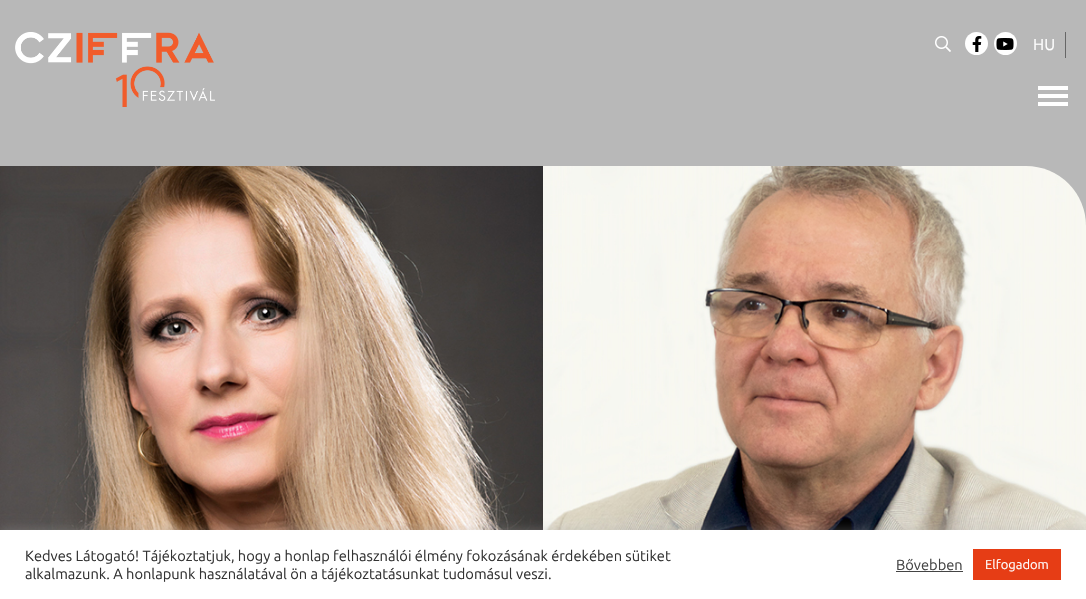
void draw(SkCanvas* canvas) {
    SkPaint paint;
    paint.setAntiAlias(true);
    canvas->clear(0xFFB8B8B8);
    canvas->drawImageRect(SkImages::DeferredFromEncodedData(SkData::MakeFromFileName("img1.png")), SkRect::MakeXYWH(15, 32, 200, 75), SkSamplingOptions());
    canvas->drawImageRect(SkImages::DeferredFromEncodedData(SkData::MakeFromFileName("img2.png")), SkRect::MakeXYWH(935, 36, 16, 16), SkSamplingOptions());
    paint.setColor(0xFFFFFFFF);
    canvas->drawCircle(976.5f, 43.5f, 11.5f, paint);
    canvas->drawImageRect(SkImages::DeferredFromEncodedData(SkData::MakeFromFileName("img3.png")), SkRect::MakeXYWH(972, 36, 10, 16), SkSamplingOptions());
    canvas->drawCircle(1005.5f, 43.5f, 11.5f, paint);
    canvas->drawImageRect(SkImages::DeferredFromEncodedData(SkData::MakeFromFileName("img4.png")), SkRect::MakeXYWH(996, 38, 18, 12), SkSamplingOptions());
    paint.setColor(0xFF666666);
    canvas->drawRect(SkRect::MakeXYWH(1065, 32, 1, 26), paint);
    SkFont font1(fontMgr->matchFamilyStyle("Ubuntu", SkFontStyle::Normal()), 16);
    font1.setSubpixel(true);
    paint.setColor(0xFFFFFFFF);
    canvas->drawString("HU", 1033, 50, font1, paint);
    canvas->drawRect(SkRect::MakeXYWH(1038, 102, 30, 4), paint);
    canvas->drawRect(SkRect::MakeXYWH(1038, 94, 30, 4), paint);
    canvas->drawRect(SkRect::MakeXYWH(1038, 86, 30, 4), paint);
    canvas->drawImageRect(SkImages::DeferredFromEncodedData(SkData::MakeFromFileName("img5.png")), SkRect::MakeXYWH(0, 166, 1086, 364), SkSamplingOptions());
    paint.setColor(0x4DACABAB);
    paint.setMaskFilter(SkMaskFilter::MakeBlur(kNormal_SkBlurStyle, 5));
    canvas->drawRect(SkRect::MakeXYWH(0, 529, 1086, 69), paint);
    paint.setMaskFilter(nullptr);
    paint.setColor(0xFFFFFFFF);
    canvas->drawRect(SkRect::MakeXYWH(0, 530, 1086, 69), paint);
    SkFont font2(fontMgr->matchFamilyStyle("Ubuntu", SkFontStyle::Normal()), 14.65f);
    font2.setSubpixel(true);
    paint.setColor(0xFF333333);
    canvas->drawString("Kedves Látogató! Tájékoztatjuk, hogy a honlap felhasználói élmény fokozásának érdekében sütiket", 25, 561, font2, paint);
    canvas->drawString("alkalmazunk. A honlapunk használatával ön a tájékoztatásunkat tudomásul veszi.", 25, 579, font2, paint);
    paint.setColor(0xFF444444);
    canvas->drawString("Bővebben", 896, 570, font2, paint);
    canvas->drawRect(SkRect::MakeXYWH(896, 571, 67, 1), paint);
    paint.setColor(0xFFE63D15);
    canvas->drawRect(SkRect::MakeXYWH(973, 549, 88, 31), paint);
    SkFont font3(fontMgr->matchFamilyStyle("Ubuntu", SkFontStyle::Normal()), 13);
    font3.setSubpixel(true);
    paint.setColor(0xFFFFFFFF);
    canvas->drawString("Elfogadom", 985, 569, font3, paint);
}
